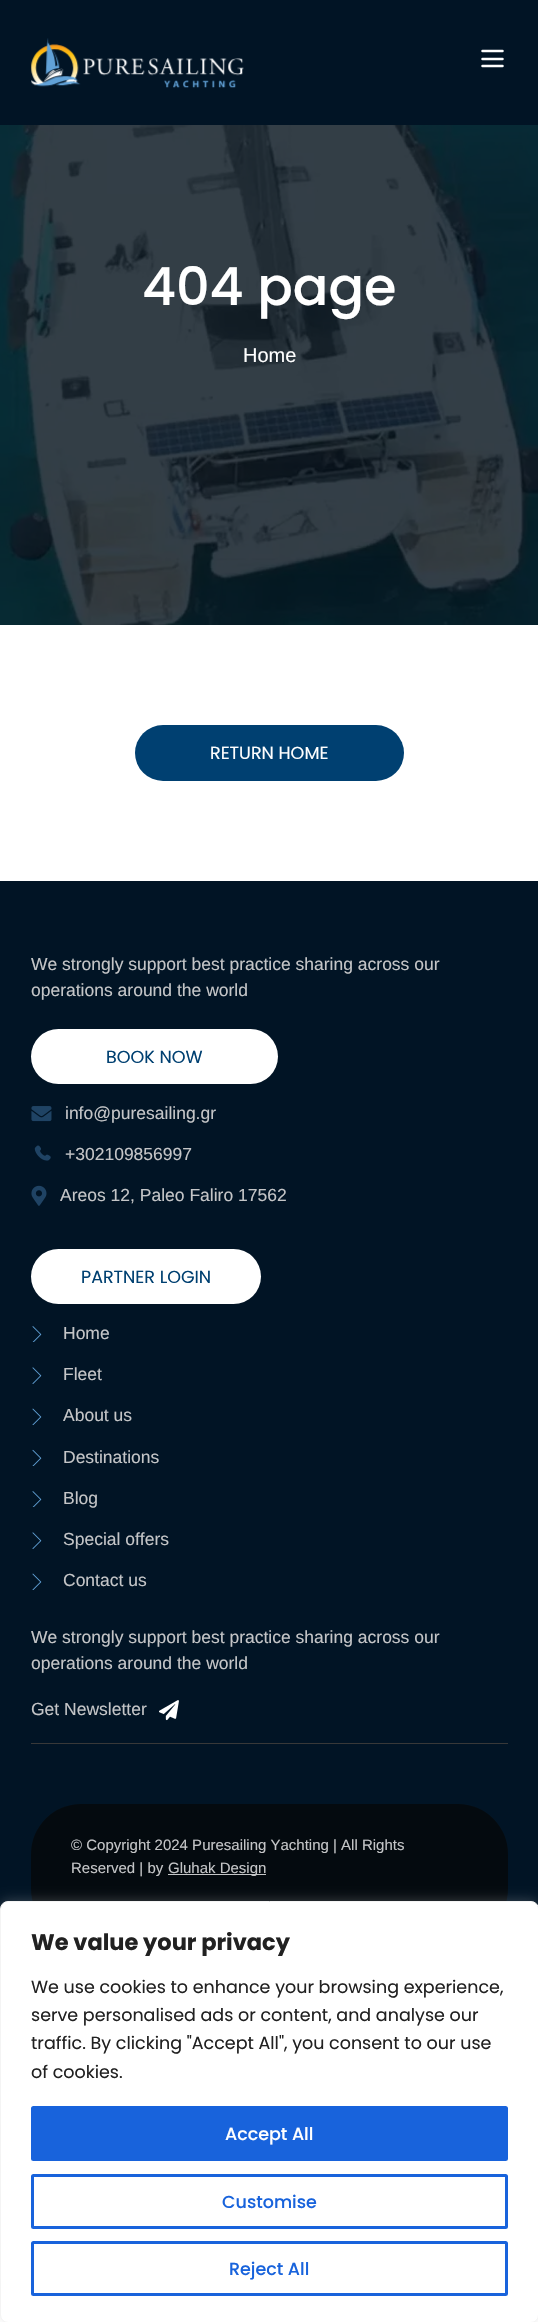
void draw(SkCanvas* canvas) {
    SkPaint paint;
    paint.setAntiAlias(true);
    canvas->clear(0xFFFFFFFF);
    paint.setColor(0xFF011425);
    canvas->drawRect(SkRect::MakeXYWH(0, 0, 538, 125), paint);
    canvas->drawImageRect(SkImages::DeferredFromEncodedData(SkData::MakeFromFileName("img1.png")), SkRect::MakeXYWH(31, 38, 213, 50), SkSamplingOptions());
    paint.setStyle(SkPaint::kStroke_Style);
    paint.setStrokeWidth(2.5f);
    paint.setStrokeCap(SkPaint::kRound_Cap);
    paint.setStrokeJoin(SkPaint::kRound_Join);
    paint.setColor(0xFFFFFFFF);
    canvas->drawPath(SkPathBuilder().moveTo(482.5f, 51).lineTo(502.5f, 51).moveTo(482.5f, 59).lineTo(502.5f, 59).moveTo(482.5f, 66).lineTo(502.5f, 66).detach(), paint);
    canvas->drawImageRect(SkImages::DeferredFromEncodedData(SkData::MakeFromFileName("img2.png")), SkRect::MakeXYWH(0, 125, 538, 500), SkSamplingOptions());
    SkFont font1(fontMgr->matchFamilyStyle("Poppins", SkFontStyle(500, SkFontStyle::kNormal_Width, SkFontStyle::kUpright_Slant)), 52.5f);
    font1.setSubpixel(true);
    paint.setStyle(SkPaint::kFill_Style);
    canvas->drawString("404 page", 142, 305, font1, paint);
    SkFont font2(fontMgr->matchFamilyStyle("Liberation Sans", SkFontStyle::Normal()), 20);
    font2.setSubpixel(true);
    canvas->drawString("Home", 243, 362, font2, paint);
    paint.setColor(0xFF004071);
    canvas->drawRoundRect(SkRect::MakeXYWH(135, 725, 269, 56), 28, 28, paint);
    SkFont font3(fontMgr->matchFamilyStyle("Poppins", SkFontStyle::Normal()), 17.5f);
    font3.setSubpixel(true);
    paint.setColor(0xFFFFFFFF);
    canvas->drawString("RETURN HOME", 210, 759, font3, paint);
    paint.setColor(0xFF011425);
    canvas->drawRect(SkRect::MakeXYWH(0, 881, 538, 1028), paint);
    SkFont font4(fontMgr->matchFamilyStyle("Liberation Sans", SkFontStyle::Normal()), 17.5f);
    font4.setSubpixel(true);
    paint.setColor(0xFFC4C5C7);
    canvas->drawString("We strongly support best practice sharing across our", 31, 970, font4, paint);
    canvas->drawString("operations around the world", 31, 996, font4, paint);
    paint.setColor(0xFFFFFFFF);
    canvas->drawRoundRect(SkRect::MakeXYWH(31, 1029, 247, 55), 27.5f, 27.5f, paint);
    paint.setColor(0xFF004071);
    canvas->drawString("BOOK NOW", 106, 1063, font3, paint);
    canvas->drawImageRect(SkImages::DeferredFromEncodedData(SkData::MakeFromFileName("img3.png")), SkRect::MakeXYWH(31, 1106, 21, 16), SkSamplingOptions());
    paint.setColor(0xFFC4C5C7);
    canvas->drawString("info@puresailing.gr", 65, 1119, font4, paint);
    canvas->drawImageRect(SkImages::DeferredFromEncodedData(SkData::MakeFromFileName("img4.png")), SkRect::MakeXYWH(34, 1145, 17, 16), SkSamplingOptions());
    canvas->drawString("+302109856997", 65, 1160, font4, paint);
    canvas->drawImageRect(SkImages::DeferredFromEncodedData(SkData::MakeFromFileName("img5.png")), SkRect::MakeXYWH(31, 1185, 16, 21), SkSamplingOptions());
    canvas->drawString("Areos 12, Paleo Faliro 17562", 60, 1201, font4, paint);
    paint.setColor(0xFFFFFFFF);
    canvas->drawRoundRect(SkRect::MakeXYWH(31, 1249, 230, 55), 27.5f, 27.5f, paint);
    paint.setColor(0xFF004071);
    canvas->drawString("PARTNER LOGIN", 81, 1283, font3, paint);
    canvas->drawImageRect(SkImages::DeferredFromEncodedData(SkData::MakeFromFileName("img6.png")), SkRect::MakeXYWH(32, 1326, 10, 16), SkSamplingOptions());
    paint.setColor(0xFFC4C5C7);
    canvas->drawString("Home", 63, 1339, font4, paint);
    canvas->drawImageRect(SkImages::DeferredFromEncodedData(SkData::MakeFromFileName("img7.png")), SkRect::MakeXYWH(32, 1367, 10, 17), SkSamplingOptions());
    canvas->drawString("Fleet", 63, 1380, font4, paint);
    canvas->drawImageRect(SkImages::DeferredFromEncodedData(SkData::MakeFromFileName("img8.png")), SkRect::MakeXYWH(32, 1408, 10, 17), SkSamplingOptions());
    canvas->drawString("About us", 63, 1421, font4, paint);
    canvas->drawImageRect(SkImages::DeferredFromEncodedData(SkData::MakeFromFileName("img9.png")), SkRect::MakeXYWH(32, 1449, 10, 17), SkSamplingOptions());
    canvas->drawString("Destinations", 63, 1463, font4, paint);
    canvas->drawImageRect(SkImages::DeferredFromEncodedData(SkData::MakeFromFileName("img6.png")), SkRect::MakeXYWH(32, 1491, 10, 16), SkSamplingOptions());
    canvas->drawString("Blog", 63, 1504, font4, paint);
    canvas->drawImageRect(SkImages::DeferredFromEncodedData(SkData::MakeFromFileName("img7.png")), SkRect::MakeXYWH(32, 1532, 10, 17), SkSamplingOptions());
    canvas->drawString("Special offers", 63, 1545, font4, paint);
    canvas->drawImageRect(SkImages::DeferredFromEncodedData(SkData::MakeFromFileName("img8.png")), SkRect::MakeXYWH(32, 1573, 10, 17), SkSamplingOptions());
    canvas->drawString("Contact us", 63, 1586, font4, paint);
    paint.setColor(0xFF383838);
    canvas->drawRect(SkRect::MakeXYWH(31, 1743, 477, 1), paint);
    paint.setColor(0xFFC4C5C7);
    canvas->drawString("We strongly support best practice sharing across our", 31, 1643, font4, paint);
    canvas->drawString("operations around the world", 31, 1669, font4, paint);
    canvas->drawString("Get Newsletter", 31, 1715, font4, paint);
    canvas->drawImageRect(SkImages::DeferredFromEncodedData(SkData::MakeFromFileName("img10.png")), SkRect::MakeXYWH(159, 1700, 20, 21), SkSamplingOptions());
    paint.setColor(0xFF040A0F);
    canvas->drawRoundRect(SkRect::MakeXYWH(31, 1804, 477, 135), 50, 50, paint);
    SkFont font5(fontMgr->matchFamilyStyle("Liberation Sans", SkFontStyle::Normal()), 15);
    font5.setSubpixel(true);
    paint.setColor(0xFFC4C5C7);
    canvas->drawString("© Copyright 2024 Puresailing Yachting | All Rights", 71, 1850, font5, paint);
    canvas->drawString("Reserved | by", 71, 1873, font5, paint);
    canvas->drawRect(SkRect::MakeXYWH(168, 1874, 98, 1), paint);
    canvas->drawString("Gluhak Design", 168, 1873, font5, paint);
    paint.setColor(0x4DACABAB);
    paint.setMaskFilter(SkMaskFilter::MakeBlur(kNormal_SkBlurStyle, 6));
    canvas->drawRoundRect(SkRect::MakeXYWH(0, 1900, 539, 421), 8, 8, paint);
    paint.setMaskFilter(nullptr);
    paint.setColor(0xFFFFFFFF);
    canvas->drawRoundRect(SkRect::MakeXYWH(0.5f, 1901.5f, 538, 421), 7.5f, 7.5f, paint);
    paint.setStyle(SkPaint::kStroke_Style);
    paint.setStrokeWidth(1);
    paint.setStrokeCap(SkPaint::kButt_Cap);
    paint.setStrokeJoin(SkPaint::kMiter_Join);
    paint.setColor(0xFFF4F4F4);
    canvas->drawRoundRect(SkRect::MakeXYWH(0.5f, 1901.5f, 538, 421), 7.5f, 7.5f, paint);
    SkFont font6(fontMgr->matchFamilyStyle("Poppins", SkFontStyle::Bold()), 22.5f);
    font6.setSubpixel(true);
    paint.setStyle(SkPaint::kFill_Style);
    paint.setColor(0xFF212121);
    canvas->drawString("We value your privacy", 31, 1950, font6, paint);
    canvas->drawString("We use cookies to enhance your browsing experience,", 31, 1993, font3, paint);
    canvas->drawString("serve personalised ads or content, and analyse our", 31, 2021, font3, paint);
    canvas->drawString("traffic. By clicking \"Accept All\", you consent to our use", 31, 2049, font3, paint);
    canvas->drawString("of cookies.", 31, 2078, font3, paint);
    paint.setColor(0xFF1863DC);
    canvas->drawRoundRect(SkRect::MakeXYWH(32.5f, 2107.5f, 474, 52), 1, 1, paint);
    paint.setStyle(SkPaint::kStroke_Style);
    paint.setStrokeWidth(3);
    canvas->drawRoundRect(SkRect::MakeXYWH(32.5f, 2107.5f, 474, 52), 1, 1, paint);
    SkFont font7(fontMgr->matchFamilyStyle("Poppins", SkFontStyle(500, SkFontStyle::kNormal_Width, SkFontStyle::kUpright_Slant)), 17.5f);
    font7.setSubpixel(true);
    paint.setStyle(SkPaint::kFill_Style);
    paint.setColor(0xFFFFFFFF);
    canvas->drawString("Accept All", 225, 2140, font7, paint);
    paint.setStyle(SkPaint::kStroke_Style);
    paint.setColor(0xFF1863DC);
    canvas->drawRoundRect(SkRect::MakeXYWH(32.5f, 2175.5f, 474, 52), 1, 1, paint);
    paint.setStyle(SkPaint::kFill_Style);
    canvas->drawString("Customise", 222, 2208, font7, paint);
    paint.setStyle(SkPaint::kStroke_Style);
    canvas->drawRoundRect(SkRect::MakeXYWH(32.5f, 2242.5f, 474, 52), 1, 1, paint);
    paint.setStyle(SkPaint::kFill_Style);
    canvas->drawString("Reject All", 229, 2275, font7, paint);
}
